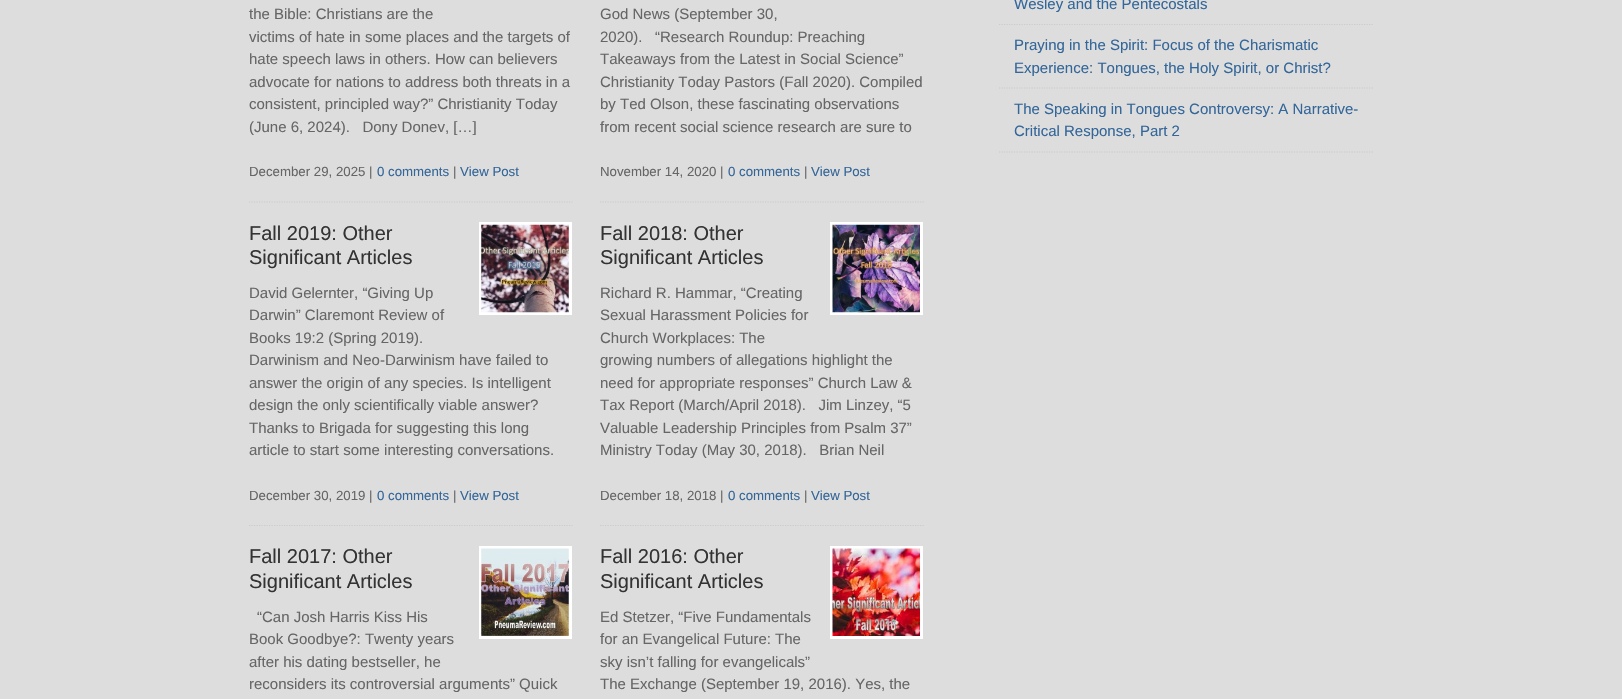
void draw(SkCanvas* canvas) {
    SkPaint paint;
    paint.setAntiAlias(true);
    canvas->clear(0xFFDDDDDD);
    paint.setStyle(SkPaint::kStroke_Style);
    paint.setStrokeWidth(1.2f);
    paint.setColor(0xFFCCCCCC);
    paint.setPathEffect(SkDashPathEffect::Make({{1.25f, 1.25f}}, 0));
    canvas->drawPath(SkPathBuilder().moveTo(249, 202).lineTo(572.5f, 202).detach(), paint);
    paint.setPathEffect(nullptr);
    SkFont font1(fontMgr->matchFamilyStyle("Liberation Sans", SkFontStyle::Normal()), 15);
    font1.setSubpixel(true);
    paint.setStyle(SkPaint::kFill_Style);
    paint.setColor(0xFF666666);
    canvas->drawString("the Bible: Christians are the", 249, 19, font1, paint);
    canvas->drawString("victims of hate in some places and the targets of", 249, 42, font1, paint);
    canvas->drawString("hate speech laws in others. How can believers", 249, 64, font1, paint);
    canvas->drawString("advocate for nations to address both threats in a", 249, 87, font1, paint);
    canvas->drawString("consistent, principled way?” Christianity Today", 249, 109, font1, paint);
    canvas->drawString("(June 6, 2024).   Dony Donev, […]", 249, 132, font1, paint);
    SkFont font2(fontMgr->matchFamilyStyle("Liberation Sans", SkFontStyle::Normal()), 13.25f);
    font2.setSubpixel(true);
    canvas->drawString("December 29, 2025 |", 249, 176, font2, paint);
    paint.setColor(0xFF336699);
    canvas->drawString("0 comments", 377, 176, font2, paint);
    paint.setColor(0xFF666666);
    canvas->drawString("|", 453, 176, font2, paint);
    paint.setColor(0xFF336699);
    canvas->drawString("View Post", 460, 176, font2, paint);
    paint.setStyle(SkPaint::kStroke_Style);
    paint.setColor(0xFFCCCCCC);
    paint.setPathEffect(SkDashPathEffect::Make({{1.25f, 1.25f}}, 0));
    canvas->drawPath(SkPathBuilder().moveTo(600, 202).lineTo(924, 202).detach(), paint);
    paint.setPathEffect(nullptr);
    paint.setStyle(SkPaint::kFill_Style);
    paint.setColor(0xFF666666);
    canvas->drawString("God News (September 30,", 600, 19, font1, paint);
    canvas->drawString("2020).   “Research Roundup: Preaching", 600, 42, font1, paint);
    canvas->drawString("Takeaways from the Latest in Social Science”", 600, 64, font1, paint);
    canvas->drawString("Christianity Today Pastors (Fall 2020). Compiled", 600, 87, font1, paint);
    canvas->drawString("by Ted Olson, these fascinating observations", 600, 109, font1, paint);
    canvas->drawString("from recent social science research are sure to", 600, 132, font1, paint);
    canvas->drawString("November 14, 2020 |", 600, 176, font2, paint);
    paint.setColor(0xFF336699);
    canvas->drawString("0 comments", 728, 176, font2, paint);
    paint.setColor(0xFF666666);
    canvas->drawString("|", 804, 176, font2, paint);
    paint.setColor(0xFF336699);
    canvas->drawString("View Post", 811, 176, font2, paint);
    paint.setStyle(SkPaint::kStroke_Style);
    paint.setColor(0xFFCCCCCC);
    paint.setPathEffect(SkDashPathEffect::Make({{1.25f, 1.25f}}, 0));
    canvas->drawPath(SkPathBuilder().moveTo(249, 525.5f).lineTo(572.5f, 525.5f).detach(), paint);
    paint.setPathEffect(nullptr);
    SkFont font3(fontMgr->matchFamilyStyle("Liberation Sans", SkFontStyle::Normal()), 20);
    font3.setSubpixel(true);
    paint.setStyle(SkPaint::kFill_Style);
    paint.setColor(0xFF333333);
    canvas->drawString("Fall 2019: Other", 249, 240, font3, paint);
    canvas->drawString("Significant Articles", 249, 264, font3, paint);
    paint.setColor(0xFFFFFFFF);
    canvas->drawRect(SkRect::MakeXYWH(479, 222, 93, 93), paint);
    canvas->drawImageRect(SkImages::DeferredFromEncodedData(SkData::MakeFromFileName("img1.png")), SkRect::MakeXYWH(481, 224, 88, 89), SkSamplingOptions());
    paint.setColor(0xFF666666);
    canvas->drawString("David Gelernter, “Giving Up", 249, 298, font1, paint);
    canvas->drawString("Darwin” Claremont Review of", 249, 320, font1, paint);
    canvas->drawString("Books 19:2 (Spring 2019).", 249, 343, font1, paint);
    canvas->drawString("Darwinism and Neo-Darwinism have failed to", 249, 365, font1, paint);
    canvas->drawString("answer the origin of any species. Is intelligent", 249, 388, font1, paint);
    canvas->drawString("design the only scientifically viable answer?", 249, 410, font1, paint);
    canvas->drawString("Thanks to Brigada for suggesting this long", 249, 433, font1, paint);
    canvas->drawString("article to start some interesting conversations.", 249, 455, font1, paint);
    canvas->drawString("December 30, 2019 |", 249, 500, font2, paint);
    paint.setColor(0xFF336699);
    canvas->drawString("0 comments", 377, 500, font2, paint);
    paint.setColor(0xFF666666);
    canvas->drawString("|", 453, 500, font2, paint);
    paint.setColor(0xFF336699);
    canvas->drawString("View Post", 460, 500, font2, paint);
    paint.setStyle(SkPaint::kStroke_Style);
    paint.setColor(0xFFCCCCCC);
    paint.setPathEffect(SkDashPathEffect::Make({{1.25f, 1.25f}}, 0));
    canvas->drawPath(SkPathBuilder().moveTo(600, 525.5f).lineTo(924, 525.5f).detach(), paint);
    paint.setPathEffect(nullptr);
    paint.setStyle(SkPaint::kFill_Style);
    paint.setColor(0xFF333333);
    canvas->drawString("Fall 2018: Other", 600, 240, font3, paint);
    canvas->drawString("Significant Articles", 600, 264, font3, paint);
    paint.setColor(0xFFFFFFFF);
    canvas->drawRect(SkRect::MakeXYWH(830, 222, 93, 93), paint);
    canvas->drawImageRect(SkImages::DeferredFromEncodedData(SkData::MakeFromFileName("img2.png")), SkRect::MakeXYWH(832, 224, 88, 89), SkSamplingOptions());
    paint.setColor(0xFF666666);
    canvas->drawString("Richard R. Hammar, “Creating", 600, 298, font1, paint);
    canvas->drawString("Sexual Harassment Policies for", 600, 320, font1, paint);
    canvas->drawString("Church Workplaces: The", 600, 343, font1, paint);
    canvas->drawString("growing numbers of allegations highlight the", 600, 365, font1, paint);
    canvas->drawString("need for appropriate responses” Church Law &", 600, 388, font1, paint);
    canvas->drawString("Tax Report (March/April 2018).   Jim Linzey, “5", 600, 410, font1, paint);
    canvas->drawString("Valuable Leadership Principles from Psalm 37”", 600, 433, font1, paint);
    canvas->drawString("Ministry Today (May 30, 2018).   Brian Neil", 600, 455, font1, paint);
    canvas->drawString("December 18, 2018 |", 600, 500, font2, paint);
    paint.setColor(0xFF336699);
    canvas->drawString("0 comments", 728, 500, font2, paint);
    paint.setColor(0xFF666666);
    canvas->drawString("|", 804, 500, font2, paint);
    paint.setColor(0xFF336699);
    canvas->drawString("View Post", 811, 500, font2, paint);
    paint.setColor(0xFF333333);
    canvas->drawString("Fall 2017: Other", 249, 563, font3, paint);
    canvas->drawString("Significant Articles", 249, 588, font3, paint);
    paint.setColor(0xFFFFFFFF);
    canvas->drawRect(SkRect::MakeXYWH(479, 546, 93, 93), paint);
    canvas->drawImageRect(SkImages::DeferredFromEncodedData(SkData::MakeFromFileName("img3.png")), SkRect::MakeXYWH(481, 548, 88, 88), SkSamplingOptions());
    paint.setColor(0xFF666666);
    canvas->drawString("“Can Josh Harris Kiss His", 257, 622, font1, paint);
    canvas->drawString("Book Goodbye?: Twenty years", 249, 644, font1, paint);
    canvas->drawString("after his dating bestseller, he", 249, 667, font1, paint);
    canvas->drawString("reconsiders its controversial arguments” Quick", 249, 689, font1, paint);
    paint.setColor(0xFF333333);
    canvas->drawString("Fall 2016: Other", 600, 563, font3, paint);
    canvas->drawString("Significant Articles", 600, 588, font3, paint);
    paint.setColor(0xFFFFFFFF);
    canvas->drawRect(SkRect::MakeXYWH(830, 546, 93, 93), paint);
    canvas->drawImageRect(SkImages::DeferredFromEncodedData(SkData::MakeFromFileName("img4.png")), SkRect::MakeXYWH(832, 548, 88, 88), SkSamplingOptions());
    paint.setColor(0xFF666666);
    canvas->drawString("Ed Stetzer, “Five Fundamentals", 600, 622, font1, paint);
    canvas->drawString("for an Evangelical Future: The", 600, 644, font1, paint);
    canvas->drawString("sky isn’t falling for evangelicals”", 600, 667, font1, paint);
    canvas->drawString("The Exchange (September 19, 2016). Yes, the", 600, 689, font1, paint);
    paint.setStyle(SkPaint::kStroke_Style);
    paint.setColor(0xFFCCCCCC);
    paint.setPathEffect(SkDashPathEffect::Make({{1.25f, 1.25f}}, 0));
    canvas->drawPath(SkPathBuilder().moveTo(999, 24.5f).lineTo(1374, 24.5f).detach(), paint);
    paint.setPathEffect(nullptr);
    paint.setStyle(SkPaint::kFill_Style);
    paint.setColor(0xFF336699);
    canvas->drawString("Wesley and the Pentecostals", 1014, 9, font1, paint);
    paint.setStyle(SkPaint::kStroke_Style);
    paint.setColor(0xFFCCCCCC);
    paint.setPathEffect(SkDashPathEffect::Make({{1.25f, 1.25f}}, 0));
    canvas->drawPath(SkPathBuilder().moveTo(999, 88).lineTo(1374, 88).detach(), paint);
    paint.setPathEffect(nullptr);
    paint.setStyle(SkPaint::kFill_Style);
    paint.setColor(0xFF336699);
    canvas->drawString("Praying in the Spirit: Focus of the Charismatic", 1014, 50, font1, paint);
    canvas->drawString("Experience: Tongues, the Holy Spirit, or Christ?", 1014, 73, font1, paint);
    paint.setStyle(SkPaint::kStroke_Style);
    paint.setColor(0xFFCCCCCC);
    paint.setPathEffect(SkDashPathEffect::Make({{1.25f, 1.25f}}, 0));
    canvas->drawPath(SkPathBuilder().moveTo(999, 152).lineTo(1374, 152).detach(), paint);
    paint.setPathEffect(nullptr);
    paint.setStyle(SkPaint::kFill_Style);
    paint.setColor(0xFF336699);
    canvas->drawString("The Speaking in Tongues Controversy: A Narrative-", 1014, 114, font1, paint);
    canvas->drawString("Critical Response, Part 2", 1014, 136, font1, paint);
}
